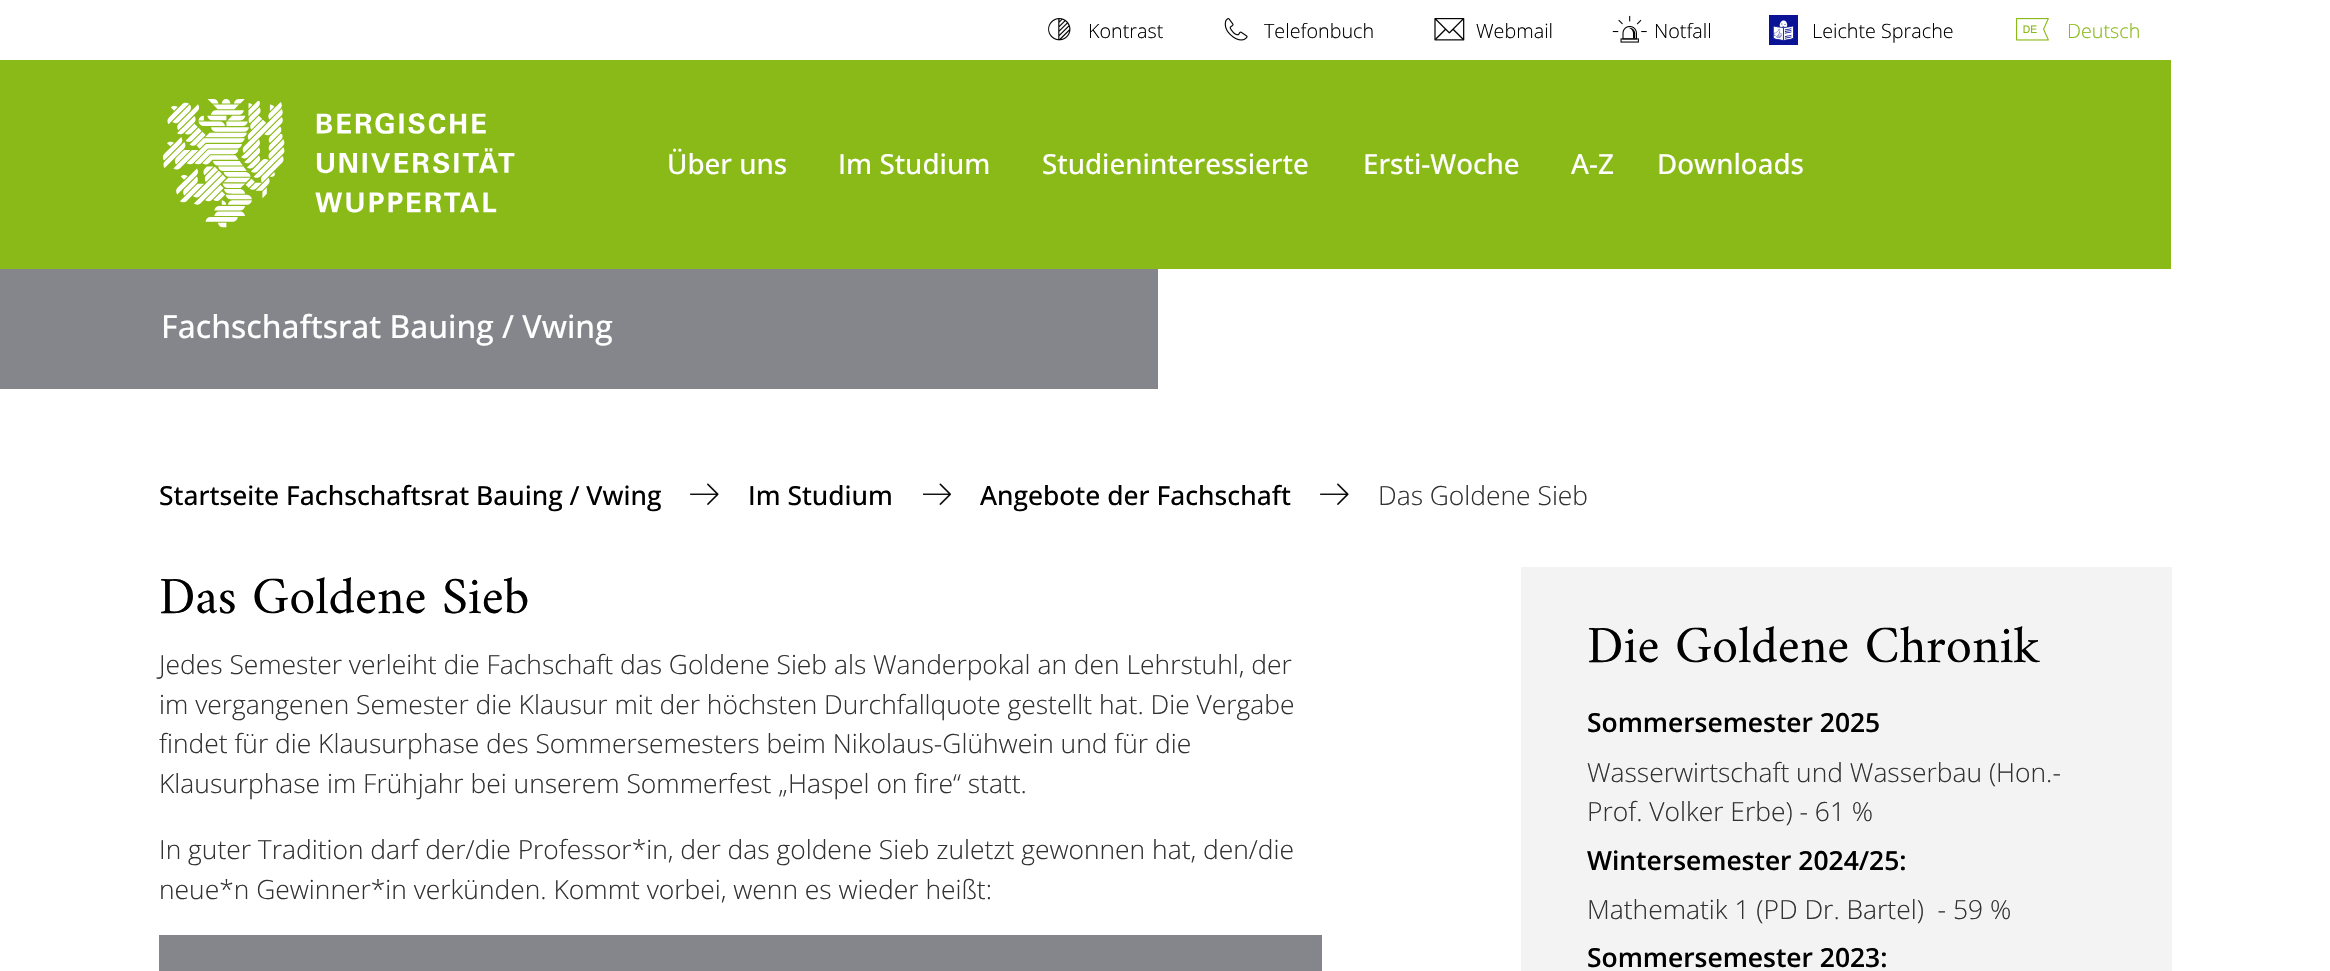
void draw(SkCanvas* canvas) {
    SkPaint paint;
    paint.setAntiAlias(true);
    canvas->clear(0xFFFFFFFF);
    canvas->drawImageRect(SkImages::DeferredFromEncodedData(SkData::MakeFromFileName("img1.png")), SkRect::MakeXYWH(1048, 18, 23, 23), SkSamplingOptions());
    SkFont font1(fontMgr->matchFamilyStyle("Open Sans", SkFontStyle(300, SkFontStyle::kNormal_Width, SkFontStyle::kUpright_Slant)), 19.75f);
    font1.setSubpixel(true);
    paint.setColor(0xFF000000);
    canvas->drawString("Kontrast", 1088, 38, font1, paint);
    canvas->drawImageRect(SkImages::DeferredFromEncodedData(SkData::MakeFromFileName("img2.png")), SkRect::MakeXYWH(1224, 18, 24, 23), SkSamplingOptions());
    canvas->drawString("Telefonbuch", 1264, 38, font1, paint);
    canvas->drawImageRect(SkImages::DeferredFromEncodedData(SkData::MakeFromFileName("img3.png")), SkRect::MakeXYWH(1434, 18, 31, 23), SkSamplingOptions());
    canvas->drawString("Webmail", 1476, 38, font1, paint);
    canvas->drawImageRect(SkImages::DeferredFromEncodedData(SkData::MakeFromFileName("img4.png")), SkRect::MakeXYWH(1612, 15, 35, 28), SkSamplingOptions());
    canvas->drawString("Notfall", 1654, 38, font1, paint);
    canvas->drawImageRect(SkImages::DeferredFromEncodedData(SkData::MakeFromFileName("img5.png")), SkRect::MakeXYWH(1769, 15, 29, 30), SkSamplingOptions());
    canvas->drawString("Leichte Sprache", 1812, 38, font1, paint);
    canvas->drawImageRect(SkImages::DeferredFromEncodedData(SkData::MakeFromFileName("img6.png")), SkRect::MakeXYWH(2016, 18, 33, 23), SkSamplingOptions());
    paint.setColor(0xFF89BA17);
    canvas->drawString("Deutsch", 2067, 38, font1, paint);
    canvas->drawRect(SkRect::MakeXYWH(0, 60, 2171, 209), paint);
    canvas->drawImageRect(SkImages::DeferredFromEncodedData(SkData::MakeFromFileName("img7.png")), SkRect::MakeXYWH(162, 99, 353, 129), SkSamplingOptions());
    SkFont font2(fontMgr->matchFamilyStyle("Open Sans", SkFontStyle(500, SkFontStyle::kNormal_Width, SkFontStyle::kUpright_Slant)), 27.75f);
    font2.setSubpixel(true);
    paint.setColor(0xFFFFFFFF);
    canvas->drawString("Über uns", 667, 174, font2, paint);
    canvas->drawString("Im Studium", 838, 174, font2, paint);
    canvas->drawString("Studieninteressierte", 1042, 174, font2, paint);
    canvas->drawString("Ersti-Woche", 1363, 174, font2, paint);
    canvas->drawString("A-Z", 1571, 174, font2, paint);
    canvas->drawString("Downloads", 1657, 174, font2, paint);
    paint.setColor(0xFF85868B);
    canvas->drawRect(SkRect::MakeXYWH(0, 269, 1158, 120), paint);
    SkFont font3(fontMgr->matchFamilyStyle("Open Sans", SkFontStyle(500, SkFontStyle::kNormal_Width, SkFontStyle::kUpright_Slant)), 31.75f);
    font3.setSubpixel(true);
    paint.setColor(0xFFFFFFFF);
    canvas->drawString("Fachschaftsrat Bauing / Vwing", 161, 338, font3, paint);
    SkFont font4(fontMgr->matchFamilyStyle("Open Sans", SkFontStyle(500, SkFontStyle::kNormal_Width, SkFontStyle::kUpright_Slant)), 26.4f);
    font4.setSubpixel(true);
    paint.setColor(0xFF000000);
    canvas->drawString("Startseite Fachschaftsrat Bauing / Vwing", 159, 505, font4, paint);
    canvas->drawImageRect(SkImages::DeferredFromEncodedData(SkData::MakeFromFileName("img8.png")), SkRect::MakeXYWH(690, 483, 29, 22), SkSamplingOptions());
    canvas->drawString("Im Studium", 748, 505, font4, paint);
    canvas->drawImageRect(SkImages::DeferredFromEncodedData(SkData::MakeFromFileName("img9.png")), SkRect::MakeXYWH(923, 483, 28, 22), SkSamplingOptions());
    canvas->drawString("Angebote der Fachschaft", 980, 505, font4, paint);
    canvas->drawImageRect(SkImages::DeferredFromEncodedData(SkData::MakeFromFileName("img8.png")), SkRect::MakeXYWH(1320, 483, 29, 22), SkSamplingOptions());
    SkFont font5(fontMgr->matchFamilyStyle("Open Sans", SkFontStyle(300, SkFontStyle::kNormal_Width, SkFontStyle::kUpright_Slant)), 26.4f);
    font5.setSubpixel(true);
    paint.setColor(0xFF323232);
    canvas->drawString("Das Goldene Sieb", 1378, 505, font5, paint);
    SkFont font6(fontMgr->matchFamilyStyle("Amiri", SkFontStyle::Normal()), 52.75f);
    font6.setSubpixel(true);
    paint.setColor(0xFF000000);
    canvas->drawString("Das Goldene Sieb", 159, 613, font6, paint);
    paint.setColor(0xFF323232);
    canvas->drawString("Jedes Semester verleiht die Fachschaft das Goldene Sieb als Wanderpokal an den Lehrstuhl, der", 159, 674, font5, paint);
    canvas->drawString("im vergangenen Semester die Klausur mit der höchsten Durchfallquote gestellt hat. Die Vergabe", 159, 714, font5, paint);
    canvas->drawString("findet für die Klausurphase des Sommersemesters beim Nikolaus-Glühwein und für die", 159, 753, font5, paint);
    canvas->drawString("Klausurphase im Frühjahr bei unserem Sommerfest „Haspel on fire“ statt.", 159, 793, font5, paint);
    canvas->drawString("In guter Tradition darf der/die Professor*in, der das goldene Sieb zuletzt gewonnen hat, den/die", 159, 859, font5, paint);
    canvas->drawString("neue*n Gewinner*in verkünden. Kommt vorbei, wenn es wieder heißt:", 159, 899, font5, paint);
    paint.setColor(0xFF85868B);
    canvas->drawRect(SkRect::MakeXYWH(159, 935, 1163, 36), paint);
    paint.setColor(0xFFF3F3F3);
    canvas->drawRect(SkRect::MakeXYWH(1521, 567, 651, 404), paint);
    paint.setColor(0xFF000000);
    canvas->drawString("Die Goldene Chronik", 1587, 662, font6, paint);
    SkFont font7(fontMgr->matchFamilyStyle("Open Sans", SkFontStyle(600, SkFontStyle::kNormal_Width, SkFontStyle::kUpright_Slant)), 26.4f);
    font7.setSubpixel(true);
    canvas->drawString("Sommersemester 2025", 1587, 732, font7, paint);
    paint.setColor(0xFF323232);
    canvas->drawString("Wasserwirtschaft und Wasserbau (Hon.-", 1587, 782, font5, paint);
    canvas->drawString("Prof. Volker Erbe) - 61 %", 1587, 821, font5, paint);
    paint.setColor(0xFF000000);
    canvas->drawString("Wintersemester 2024/25:", 1587, 870, font7, paint);
    paint.setColor(0xFF323232);
    canvas->drawString("Mathematik 1 (PD Dr. Bartel)  - 59 %", 1587, 919, font5, paint);
    paint.setColor(0xFF000000);
    canvas->drawString("Sommersemester 2023:", 1587, 967, font7, paint);
}
